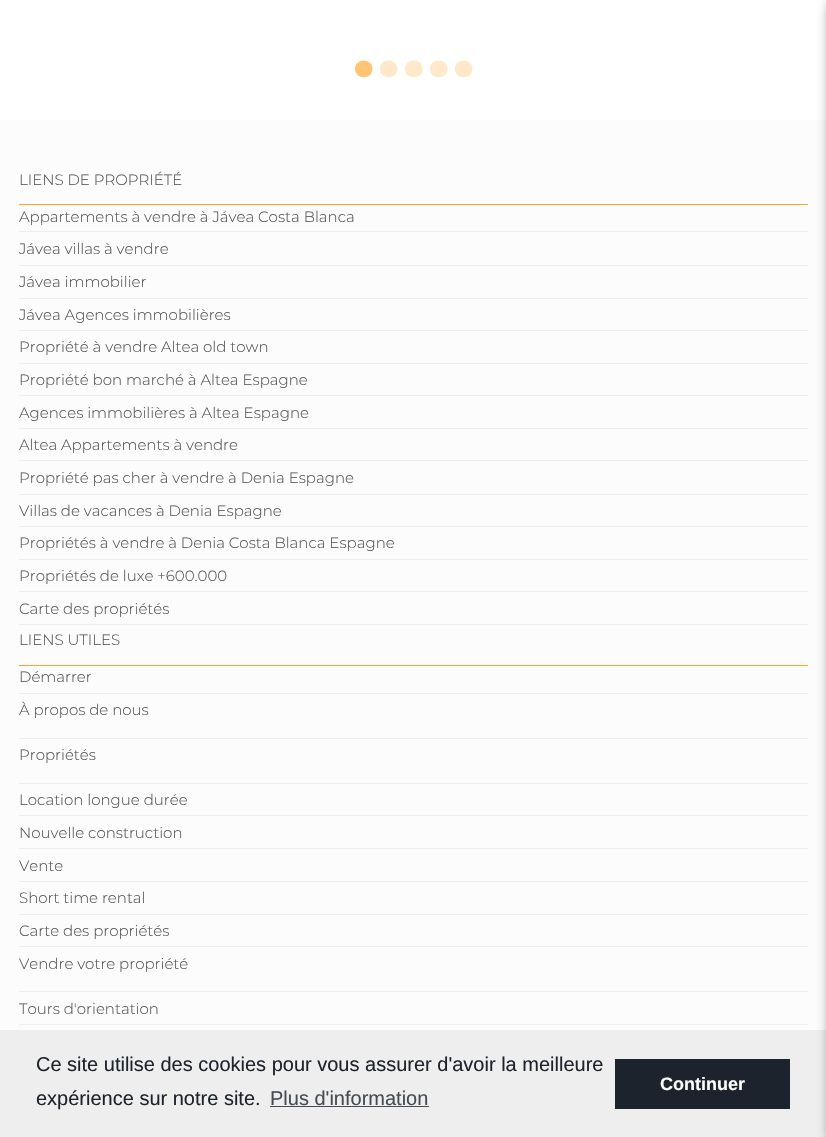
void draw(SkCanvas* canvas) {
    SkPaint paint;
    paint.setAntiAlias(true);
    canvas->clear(0xFFFFFFFF);
    paint.setColor(0xFFFFC575);
    canvas->drawPath(SkPathBuilder().moveTo(372.5f, 69).cubicTo(372.5f, 57.5f, 355, 57.5f, 355, 69).cubicTo(355, 80, 372.5f, 80, 372.5f, 69).close().detach(), paint);
    paint.setColor(0xFFFFE9CA);
    canvas->drawPath(SkPathBuilder().moveTo(397.5f, 69).cubicTo(397.5f, 57.5f, 380, 57.5f, 380, 69).cubicTo(380, 80, 397.5f, 80, 397.5f, 69).close().moveTo(422.5f, 69).cubicTo(422.5f, 57.5f, 405, 57.5f, 405, 69).cubicTo(405, 80, 422.5f, 80, 422.5f, 69).close().detach(), paint);
    canvas->drawPath(SkPathBuilder().moveTo(447.5f, 69).cubicTo(447.5f, 57.5f, 430, 57.5f, 430, 69).cubicTo(430, 80, 447.5f, 80, 447.5f, 69).close().moveTo(472.5f, 69).cubicTo(472.5f, 57.5f, 455, 57.5f, 455, 69).cubicTo(455, 80, 472.5f, 80, 472.5f, 69).close().detach(), paint);
    paint.setColor(0xFFFCFCFC);
    canvas->drawRect(SkRect::MakeXYWH(0, 120, 826, 910), paint);
    paint.setColor(0xFFEEEEEE);
    canvas->drawRect(SkRect::MakeXYWH(0, 1030, 826, 107), paint);
    paint.setColor(0xFF000000);
    paint.setMaskFilter(SkMaskFilter::MakeBlur(kNormal_SkBlurStyle, 7.5f));
    canvas->drawRect(SkRect::MakeXYWH(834, 4, 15, 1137), paint);
    paint.setMaskFilter(nullptr);
    paint.setColor(0xFFFFA52A);
    canvas->drawRect(SkRect::MakeXYWH(19, 204, 789, 1), paint);
    SkFont font1(fontMgr->matchFamilyStyle("Montserrat", SkFontStyle(300, SkFontStyle::kNormal_Width, SkFontStyle::kUpright_Slant)), 15);
    font1.setSubpixel(true);
    paint.setColor(0xFF555555);
    canvas->drawString("LIENS DE PROPRIÉTÉ", 19, 185, font1, paint);
    paint.setColor(0xFFEFEFEF);
    canvas->drawRect(SkRect::MakeXYWH(19, 231, 789, 1), paint);
    paint.setColor(0xFF555555);
    canvas->drawString("Appartements à vendre à Jávea Costa Blanca", 19, 222, font1, paint);
    paint.setColor(0xFFEFEFEF);
    canvas->drawRect(SkRect::MakeXYWH(19, 265, 789, 1), paint);
    paint.setColor(0xFF555555);
    canvas->drawString("Jávea villas à vendre", 19, 254, font1, paint);
    paint.setColor(0xFFEFEFEF);
    canvas->drawRect(SkRect::MakeXYWH(19, 298, 789, 1), paint);
    paint.setColor(0xFF555555);
    canvas->drawString("Jávea immobilier", 19, 287, font1, paint);
    paint.setColor(0xFFEFEFEF);
    canvas->drawRect(SkRect::MakeXYWH(19, 330, 789, 1), paint);
    paint.setColor(0xFF555555);
    canvas->drawString("Jávea Agences immobilières", 19, 320, font1, paint);
    paint.setColor(0xFFEFEFEF);
    canvas->drawRect(SkRect::MakeXYWH(19, 363, 789, 1), paint);
    paint.setColor(0xFF555555);
    canvas->drawString("Propriété à vendre Altea old town", 19, 352, font1, paint);
    paint.setColor(0xFFEFEFEF);
    canvas->drawRect(SkRect::MakeXYWH(19, 395, 789, 1), paint);
    paint.setColor(0xFF555555);
    canvas->drawString("Propriété bon marché à Altea Espagne", 19, 385, font1, paint);
    paint.setColor(0xFFEFEFEF);
    canvas->drawRect(SkRect::MakeXYWH(19, 428, 789, 1), paint);
    paint.setColor(0xFF555555);
    canvas->drawString("Agences immobilières à Altea Espagne", 19, 418, font1, paint);
    paint.setColor(0xFFEFEFEF);
    canvas->drawRect(SkRect::MakeXYWH(19, 460, 789, 1), paint);
    paint.setColor(0xFF555555);
    canvas->drawString("Altea Appartements à vendre", 19, 450, font1, paint);
    paint.setColor(0xFFEFEFEF);
    canvas->drawRect(SkRect::MakeXYWH(19, 494, 789, 1), paint);
    paint.setColor(0xFF555555);
    canvas->drawString("Propriété pas cher à vendre à Denia Espagne", 19, 483, font1, paint);
    paint.setColor(0xFFEFEFEF);
    canvas->drawRect(SkRect::MakeXYWH(19, 526, 789, 1), paint);
    paint.setColor(0xFF555555);
    canvas->drawString("Villas de vacances à Denia Espagne", 19, 516, font1, paint);
    paint.setColor(0xFFEFEFEF);
    canvas->drawRect(SkRect::MakeXYWH(19, 559, 789, 1), paint);
    paint.setColor(0xFF555555);
    canvas->drawString("Propriétés à vendre à Denia Costa Blanca Espagne", 19, 548, font1, paint);
    paint.setColor(0xFFEFEFEF);
    canvas->drawRect(SkRect::MakeXYWH(19, 591, 789, 1), paint);
    paint.setColor(0xFF555555);
    canvas->drawString("Propriétés de luxe +600.000", 19, 581, font1, paint);
    paint.setColor(0xFFEFEFEF);
    canvas->drawRect(SkRect::MakeXYWH(19, 624, 789, 1), paint);
    paint.setColor(0xFF555555);
    canvas->drawString("Carte des propriétés", 19, 614, font1, paint);
    paint.setColor(0xFFFFA52A);
    canvas->drawRect(SkRect::MakeXYWH(19, 665, 789, 1), paint);
    paint.setColor(0xFF555555);
    canvas->drawString("LIENS UTILES", 19, 645, font1, paint);
    paint.setColor(0xFFEFEFEF);
    canvas->drawRect(SkRect::MakeXYWH(19, 693, 789, 1), paint);
    paint.setColor(0xFF555555);
    canvas->drawString("Démarrer", 19, 682, font1, paint);
    paint.setColor(0xFFEFEFEF);
    canvas->drawRect(SkRect::MakeXYWH(19, 738, 789, 1), paint);
    paint.setColor(0xFF555555);
    canvas->drawString("À propos de nous", 19, 715, font1, paint);
    paint.setColor(0xFFEFEFEF);
    canvas->drawRect(SkRect::MakeXYWH(19, 783, 789, 1), paint);
    paint.setColor(0xFF555555);
    canvas->drawString("Propriétés", 19, 760, font1, paint);
    paint.setColor(0xFFEFEFEF);
    canvas->drawRect(SkRect::MakeXYWH(19, 815, 789, 1), paint);
    paint.setColor(0xFF555555);
    canvas->drawString("Location longue durée", 19, 805, font1, paint);
    paint.setColor(0xFFEFEFEF);
    canvas->drawRect(SkRect::MakeXYWH(19, 848, 789, 1), paint);
    paint.setColor(0xFF555555);
    canvas->drawString("Nouvelle construction", 19, 838, font1, paint);
    paint.setColor(0xFFEFEFEF);
    canvas->drawRect(SkRect::MakeXYWH(19, 881, 789, 1), paint);
    paint.setColor(0xFF555555);
    canvas->drawString("Vente", 19, 871, font1, paint);
    paint.setColor(0xFFEFEFEF);
    canvas->drawRect(SkRect::MakeXYWH(19, 914, 789, 1), paint);
    paint.setColor(0xFF555555);
    canvas->drawString("Short time rental", 19, 903, font1, paint);
    paint.setColor(0xFFEFEFEF);
    canvas->drawRect(SkRect::MakeXYWH(19, 946, 789, 1), paint);
    paint.setColor(0xFF555555);
    canvas->drawString("Carte des propriétés", 19, 936, font1, paint);
    paint.setColor(0xFFEFEFEF);
    canvas->drawRect(SkRect::MakeXYWH(19, 991, 789, 1), paint);
    paint.setColor(0xFF555555);
    canvas->drawString("Vendre votre propriété", 19, 969, font1, paint);
    paint.setColor(0xFFEFEFEF);
    canvas->drawRect(SkRect::MakeXYWH(19, 1024, 789, 1), paint);
    paint.setColor(0xFF555555);
    canvas->drawString("Tours d'orientation", 19, 1014, font1, paint);
    SkFont font2(fontMgr->matchFamilyStyle("Liberation Sans", SkFontStyle::Normal()), 20);
    font2.setSubpixel(true);
    paint.setColor(0xFF1C232C);
    canvas->drawString("Ce site utilise des cookies pour vous assurer d'avoir la meilleure", 36, 1071, font2, paint);
    canvas->drawString("expérience sur notre site.", 36, 1105, font2, paint);
    paint.setColor(0xFF464C53);
    canvas->drawString("Plus d'information", 270, 1105, font2, paint);
    canvas->drawRect(SkRect::MakeXYWH(270, 1106, 159, 1), paint);
    paint.setColor(0xFF1C232C);
    canvas->drawRect(SkRect::MakeXYWH(615, 1059, 175, 50), paint);
    SkFont font3(fontMgr->matchFamilyStyle("Liberation Sans", SkFontStyle::Bold()), 18);
    font3.setSubpixel(true);
    paint.setColor(0xFFFFFFFF);
    canvas->drawString("Continuer", 660, 1090, font3, paint);
}
